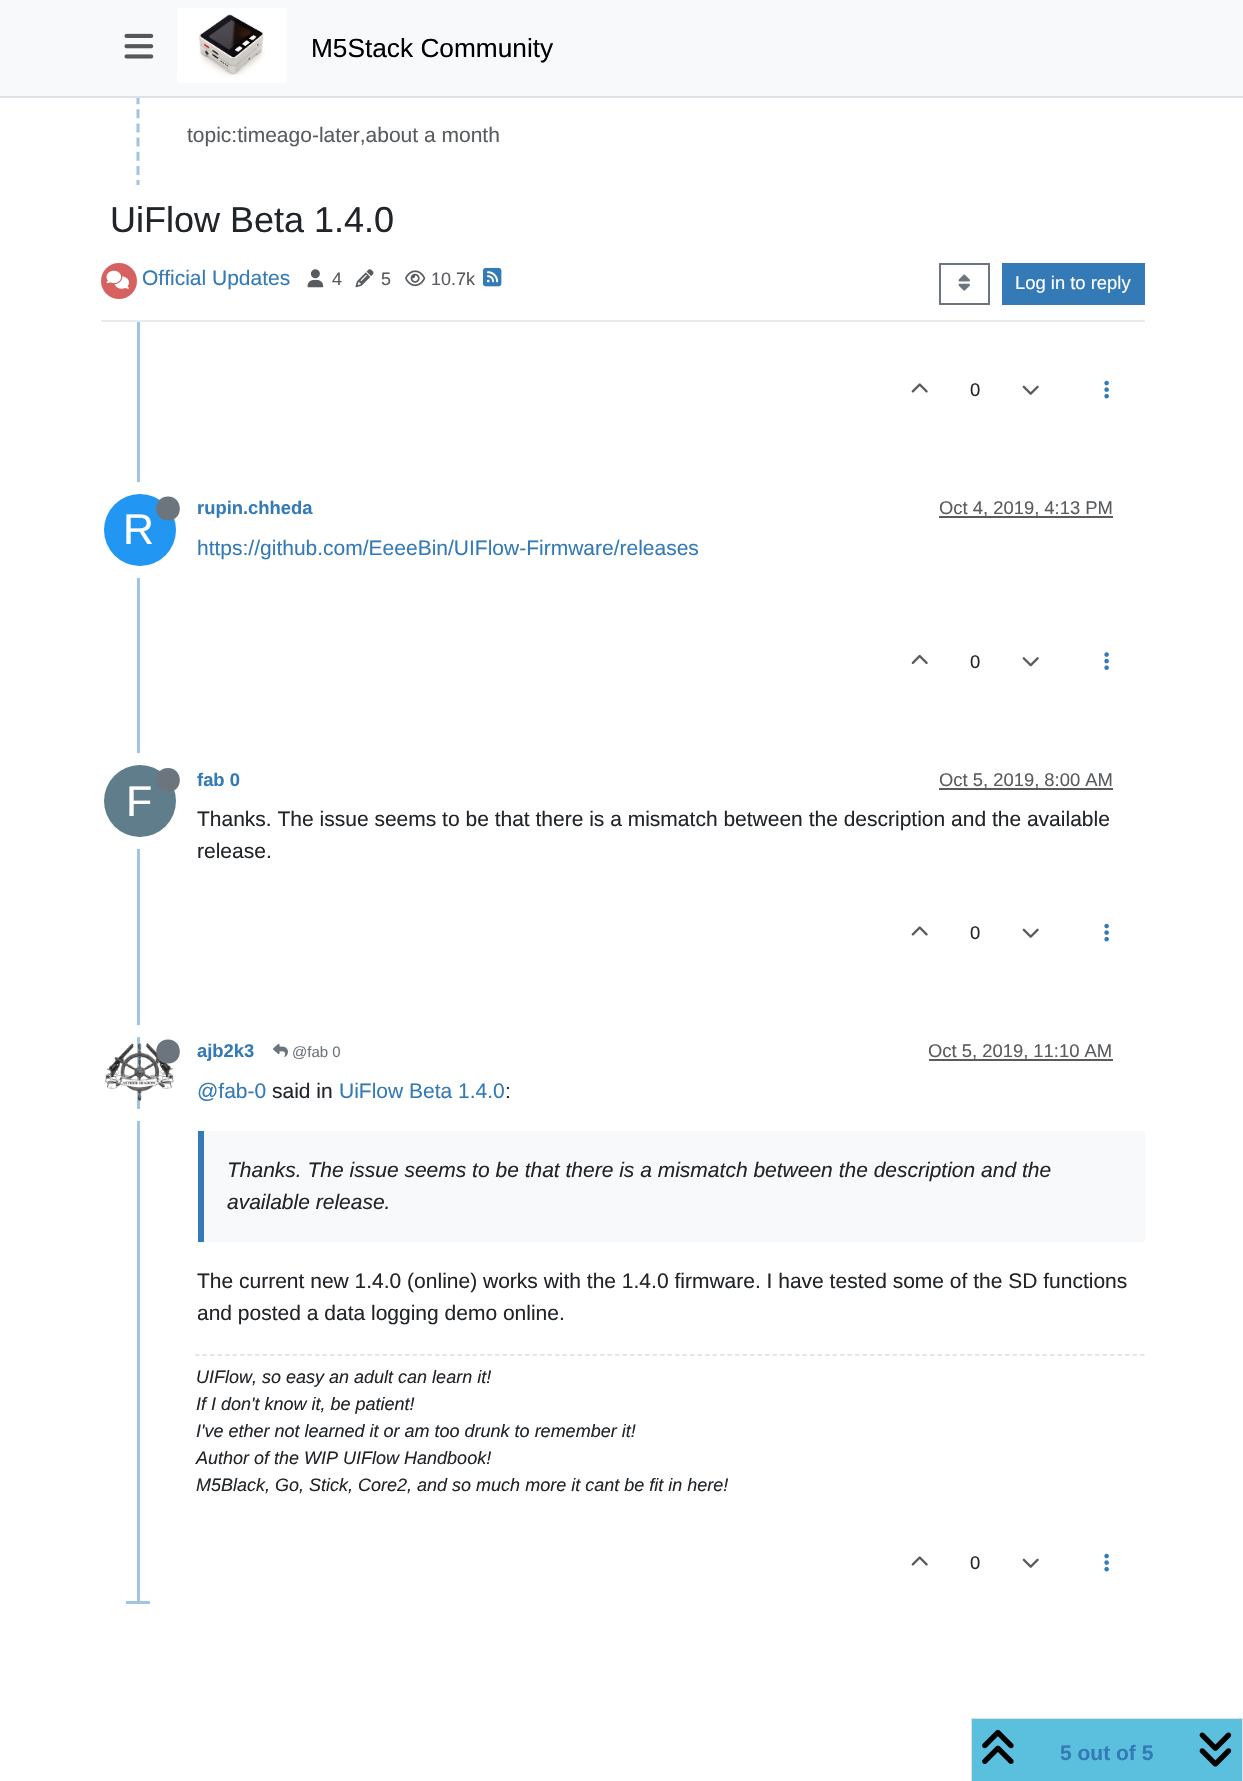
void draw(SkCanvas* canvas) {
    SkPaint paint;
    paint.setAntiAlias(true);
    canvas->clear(0xFFFFFFFF);
    paint.setStyle(SkPaint::kStroke_Style);
    paint.setStrokeWidth(3);
    paint.setColor(0xFFA0C4E4);
    paint.setPathEffect(SkDashPathEffect::Make({{9, 5.15f}}, 0));
    canvas->drawPath(SkPathBuilder().moveTo(138, 81).lineTo(138, 189).detach(), paint);
    paint.setPathEffect(nullptr);
    paint.setStyle(SkPaint::kFill_Style);
    paint.setColor(0xFFF8F9FA);
    canvas->drawRect(SkRect::MakeXYWH(0, 0, 1243, 96), paint);
    paint.setColor(0xFFDEE2E6);
    canvas->drawRect(SkRect::MakeXYWH(0, 96, 1243, 2), paint);
    canvas->drawImageRect(SkImages::DeferredFromEncodedData(SkData::MakeFromFileName("img1.png")), SkRect::MakeXYWH(124, 33, 30, 26), SkSamplingOptions());
    canvas->drawImageRect(SkImages::DeferredFromEncodedData(SkData::MakeFromFileName("img2.png")), SkRect::MakeXYWH(177, 8, 110, 75), SkSamplingOptions());
    SkFont font1(fontMgr->matchFamilyStyle("Liberation Sans", SkFontStyle::Normal()), 26.25f);
    font1.setSubpixel(true);
    paint.setColor(0xFF000000);
    canvas->drawString("M5Stack Community", 311, 57, font1, paint);
    SkFont font2(fontMgr->matchFamilyStyle("Liberation Sans", SkFontStyle::Normal()), 21);
    font2.setSubpixel(true);
    paint.setColor(0xFF595C5F);
    canvas->drawString("topic:timeago-later,about a month", 187, 142, font2, paint);
    paint.setColor(0xFFA0C4E4);
    canvas->drawRect(SkRect::MakeXYWH(137, 322, 3, 1282), paint);
    canvas->drawImageRect(SkImages::DeferredFromEncodedData(SkData::MakeFromFileName("img3.png")), SkRect::MakeXYWH(911, 383, 17, 10), SkSamplingOptions());
    SkFont font3(fontMgr->matchFamilyStyle("Liberation Sans", SkFontStyle::Normal()), 18.4f);
    font3.setSubpixel(true);
    paint.setColor(0xFF212529);
    canvas->drawString("0", 970, 396, font3, paint);
    canvas->drawImageRect(SkImages::DeferredFromEncodedData(SkData::MakeFromFileName("img4.png")), SkRect::MakeXYWH(1022, 385, 17, 10), SkSamplingOptions());
    canvas->drawImageRect(SkImages::DeferredFromEncodedData(SkData::MakeFromFileName("img5.png")), SkRect::MakeXYWH(1104, 380, 5, 19), SkSamplingOptions());
    SkFont font4(fontMgr->matchFamilyStyle("Liberation Sans", SkFontStyle::Bold()), 18.4f);
    font4.setSubpixel(true);
    paint.setColor(0xFF337AB7);
    canvas->drawString("rupin.chheda", 197, 514, font4, paint);
    paint.setColor(0xFF595C5F);
    canvas->drawRect(SkRect::MakeXYWH(939, 516, 174, 2), paint);
    canvas->drawString("Oct 4, 2019, 4:13 PM", 939, 514, font3, paint);
    paint.setStyle(SkPaint::kStroke_Style);
    paint.setStrokeWidth(12);
    paint.setColor(0xFFFFFFFF);
    canvas->drawCircle(140, 530, 42, paint);
    paint.setStyle(SkPaint::kFill_Style);
    paint.setColor(0xFF2196F3);
    canvas->drawCircle(140, 530, 36, paint);
    paint.setColor(0xFF6C757D);
    canvas->drawPath(SkPathBuilder().moveTo(168, 520.5f).cubicTo(184, 520.5f, 183.5f, 496.5f, 168, 496.5f).cubicTo(152.5f, 496.5f, 152, 520.5f, 168, 520.5f).close().detach(), paint);
    SkFont font5(fontMgr->matchFamilyStyle("Liberation Sans", SkFontStyle::Normal()), 43);
    font5.setSubpixel(true);
    paint.setColor(0xFFFFFFFF);
    canvas->drawString("R", 123, 544, font5, paint);
    paint.setColor(0xFF337AB7);
    canvas->drawString("https://github.com/EeeeBin/UIFlow-Firmware/releases", 197, 555, font2, paint);
    canvas->drawImageRect(SkImages::DeferredFromEncodedData(SkData::MakeFromFileName("img6.png")), SkRect::MakeXYWH(911, 654, 17, 10), SkSamplingOptions());
    paint.setColor(0xFF212529);
    canvas->drawString("0", 970, 668, font3, paint);
    canvas->drawImageRect(SkImages::DeferredFromEncodedData(SkData::MakeFromFileName("img7.png")), SkRect::MakeXYWH(1022, 657, 17, 10), SkSamplingOptions());
    canvas->drawImageRect(SkImages::DeferredFromEncodedData(SkData::MakeFromFileName("img8.png")), SkRect::MakeXYWH(1104, 652, 5, 18), SkSamplingOptions());
    paint.setColor(0xFF337AB7);
    canvas->drawString("fab 0", 197, 786, font4, paint);
    paint.setColor(0xFF595C5F);
    canvas->drawRect(SkRect::MakeXYWH(939, 788, 174, 2), paint);
    canvas->drawString("Oct 5, 2019, 8:00 AM", 939, 786, font3, paint);
    paint.setStyle(SkPaint::kStroke_Style);
    paint.setColor(0xFFFFFFFF);
    canvas->drawCircle(140, 801, 42, paint);
    paint.setStyle(SkPaint::kFill_Style);
    paint.setColor(0xFF607D8B);
    canvas->drawCircle(140, 801, 36, paint);
    paint.setColor(0xFF6C757D);
    canvas->drawPath(SkPathBuilder().moveTo(168, 792).cubicTo(184, 792, 183.5f, 768, 168, 768).cubicTo(152.5f, 768, 152, 792, 168, 792).close().detach(), paint);
    paint.setColor(0xFFFFFFFF);
    canvas->drawString("F", 126, 816, font5, paint);
    paint.setColor(0xFF212529);
    canvas->drawString("Thanks. The issue seems to be that there is a mismatch between the description and the available", 197, 826, font2, paint);
    canvas->drawString("release.", 197, 858, font2, paint);
    canvas->drawImageRect(SkImages::DeferredFromEncodedData(SkData::MakeFromFileName("img3.png")), SkRect::MakeXYWH(911, 926, 17, 10), SkSamplingOptions());
    canvas->drawString("0", 970, 939, font3, paint);
    canvas->drawImageRect(SkImages::DeferredFromEncodedData(SkData::MakeFromFileName("img4.png")), SkRect::MakeXYWH(1022, 928, 17, 10), SkSamplingOptions());
    canvas->drawImageRect(SkImages::DeferredFromEncodedData(SkData::MakeFromFileName("img5.png")), SkRect::MakeXYWH(1104, 923, 5, 19), SkSamplingOptions());
    paint.setStyle(SkPaint::kStroke_Style);
    paint.setColor(0xFFFFFFFF);
    canvas->drawCircle(140, 1073, 42, paint);
    canvas->drawImageRect(SkImages::DeferredFromEncodedData(SkData::MakeFromFileName("img9.png")), SkRect::MakeXYWH(104, 1043, 70, 59), SkSamplingOptions());
    paint.setStyle(SkPaint::kFill_Style);
    paint.setColor(0xFF6C757D);
    canvas->drawPath(SkPathBuilder().moveTo(168, 1063.5f).cubicTo(184, 1063.5f, 183.5f, 1039.5f, 168, 1039.5f).cubicTo(152.5f, 1039.5f, 152, 1063.5f, 168, 1063.5f).close().detach(), paint);
    paint.setColor(0xFF337AB7);
    canvas->drawString("ajb2k3", 197, 1057, font4, paint);
    canvas->drawImageRect(SkImages::DeferredFromEncodedData(SkData::MakeFromFileName("img10.png")), SkRect::MakeXYWH(273, 1043, 15, 14), SkSamplingOptions());
    SkFont font6(fontMgr->matchFamilyStyle("Liberation Sans", SkFontStyle::Normal()), 15);
    font6.setSubpixel(true);
    paint.setColor(0xFF6C757D);
    canvas->drawString("@fab 0", 292, 1057, font6, paint);
    paint.setColor(0xFF595C5F);
    canvas->drawRect(SkRect::MakeXYWH(929, 1059, 184, 2), paint);
    canvas->drawString("Oct 5, 2019, 11:10 AM", 928, 1057, font3, paint);
    paint.setColor(0xFF337AB7);
    canvas->drawString("@fab-0", 197, 1098, font2, paint);
    paint.setColor(0xFF212529);
    canvas->drawString("said in", 272, 1098, font2, paint);
    paint.setColor(0xFF337AB7);
    canvas->drawString("UiFlow Beta 1.4.0", 339, 1098, font2, paint);
    paint.setColor(0xFF212529);
    canvas->drawString(":", 505, 1098, font2, paint);
    paint.setColor(0xFFF8F9FA);
    canvas->drawRect(SkRect::MakeXYWH(204, 1131, 941, 111), paint);
    paint.setColor(0xFF337AB7);
    canvas->drawRect(SkRect::MakeXYWH(198, 1131, 6, 111), paint);
    SkFont font7(fontMgr->matchFamilyStyle("Liberation Sans", SkFontStyle::Italic()), 21);
    font7.setSubpixel(true);
    paint.setColor(0xFF212529);
    canvas->drawString("Thanks. The issue seems to be that there is a mismatch between the description and the", 227, 1177, font7, paint);
    canvas->drawString("available release.", 227, 1209, font7, paint);
    canvas->drawString("The current new 1.4.0 (online) works with the 1.4.0 firmware. I have tested some of the SD functions", 197, 1288, font2, paint);
    canvas->drawString("and posted a data logging demo online.", 197, 1320, font2, paint);
    paint.setStyle(SkPaint::kStroke_Style);
    paint.setStrokeWidth(1.5f);
    paint.setColor(0xFFDEDEDE);
    paint.setPathEffect(SkDashPathEffect::Make({{4.5f, 3}}, 0));
    canvas->drawPath(SkPathBuilder().moveTo(195, 1355).lineTo(1144.5f, 1355).detach(), paint);
    paint.setPathEffect(nullptr);
    SkFont font8(fontMgr->matchFamilyStyle("Liberation Sans", SkFontStyle::Italic()), 18);
    font8.setSubpixel(true);
    paint.setStyle(SkPaint::kFill_Style);
    paint.setColor(0xFF212529);
    canvas->drawString("UIFlow, so easy an adult can learn it!", 196, 1383, font8, paint);
    canvas->drawString("If I don't know it, be patient!", 196, 1410, font8, paint);
    canvas->drawString("I've ether not learned it or am too drunk to remember it!", 196, 1437, font8, paint);
    canvas->drawString("Author of the WIP UIFlow Handbook!", 196, 1464, font8, paint);
    canvas->drawString("M5Black, Go, Stick, Core2, and so much more it cant be fit in here!", 196, 1491, font8, paint);
    canvas->drawImageRect(SkImages::DeferredFromEncodedData(SkData::MakeFromFileName("img3.png")), SkRect::MakeXYWH(911, 1556, 17, 10), SkSamplingOptions());
    canvas->drawString("0", 970, 1569, font3, paint);
    canvas->drawImageRect(SkImages::DeferredFromEncodedData(SkData::MakeFromFileName("img4.png")), SkRect::MakeXYWH(1022, 1558, 17, 10), SkSamplingOptions());
    canvas->drawImageRect(SkImages::DeferredFromEncodedData(SkData::MakeFromFileName("img5.png")), SkRect::MakeXYWH(1104, 1553, 5, 19), SkSamplingOptions());
    paint.setColor(0xFFA0C4E4);
    canvas->drawRect(SkRect::MakeXYWH(126, 1601, 24, 3), paint);
    paint.setColor(0xFFFFFFFF);
    canvas->drawRect(SkRect::MakeXYWH(136, 185, 4, 4), paint);
    SkFont font9(fontMgr->matchFamilyStyle("Liberation Sans", SkFontStyle::Normal()), 36);
    font9.setSubpixel(true);
    paint.setColor(0xFF212529);
    canvas->drawString("UiFlow Beta 1.4.0", 110, 232, font9, paint);
    paint.setColor(0xFFE9ECEF);
    canvas->drawRect(SkRect::MakeXYWH(101, 320, 1044, 2), paint);
    paint.setColor(0xFFD66161);
    canvas->drawCircle(119, 281, 18, paint);
    canvas->drawImageRect(SkImages::DeferredFromEncodedData(SkData::MakeFromFileName("img11.png")), SkRect::MakeXYWH(106, 270, 23, 19), SkSamplingOptions());
    paint.setColor(0xFF337AB7);
    canvas->drawString("Official Updates", 142, 285, font2, paint);
    canvas->drawImageRect(SkImages::DeferredFromEncodedData(SkData::MakeFromFileName("img12.png")), SkRect::MakeXYWH(307, 269, 17, 19), SkSamplingOptions());
    SkFont font10(fontMgr->matchFamilyStyle("Liberation Sans", SkFontStyle::Normal()), 18);
    font10.setSubpixel(true);
    paint.setColor(0xFF595C5F);
    canvas->drawString("4", 332, 285, font10, paint);
    canvas->drawImageRect(SkImages::DeferredFromEncodedData(SkData::MakeFromFileName("img13.png")), SkRect::MakeXYWH(355, 269, 19, 19), SkSamplingOptions());
    canvas->drawString("5", 381, 285, font10, paint);
    canvas->drawImageRect(SkImages::DeferredFromEncodedData(SkData::MakeFromFileName("img14.png")), SkRect::MakeXYWH(405, 270, 21, 17), SkSamplingOptions());
    canvas->drawString("10.7k", 431, 285, font10, paint);
    canvas->drawImageRect(SkImages::DeferredFromEncodedData(SkData::MakeFromFileName("img15.png")), SkRect::MakeXYWH(483, 267, 19, 20), SkSamplingOptions());
    paint.setStyle(SkPaint::kStroke_Style);
    paint.setStrokeWidth(2);
    paint.setColor(0xFF6C757D);
    canvas->drawRect(SkRect::MakeXYWH(940, 264, 49, 40), paint);
    canvas->drawImageRect(SkImages::DeferredFromEncodedData(SkData::MakeFromFileName("img16.png")), SkRect::MakeXYWH(958, 274, 12, 17), SkSamplingOptions());
    paint.setStyle(SkPaint::kFill_Style);
    paint.setColor(0xFF337AB7);
    canvas->drawRect(SkRect::MakeXYWH(1002, 263, 143, 42), paint);
    paint.setColor(0xFFFFFFFF);
    canvas->drawString("Log in to reply", 1015, 289, font3, paint);
    paint.setStyle(SkPaint::kStroke_Style);
    paint.setColor(0xFFDEE2E6);
    canvas->drawRect(SkRect::MakeXYWH(972, 1719, 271, 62), paint);
    paint.setStyle(SkPaint::kFill_Style);
    paint.setColor(0xFF5BC0DE);
    canvas->drawRect(SkRect::MakeXYWH(972, 1719, 270, 62), paint);
    canvas->drawImageRect(SkImages::DeferredFromEncodedData(SkData::MakeFromFileName("img17.png")), SkRect::MakeXYWH(982, 1729, 32, 35), SkSamplingOptions());
    SkFont font11(fontMgr->matchFamilyStyle("Liberation Sans", SkFontStyle::Bold()), 21);
    font11.setSubpixel(true);
    paint.setColor(0xFF337AB7);
    canvas->drawString("5 out of 5", 1060, 1760, font11, paint);
    canvas->drawImageRect(SkImages::DeferredFromEncodedData(SkData::MakeFromFileName("img18.png")), SkRect::MakeXYWH(1199, 1732, 33, 35), SkSamplingOptions());
}
